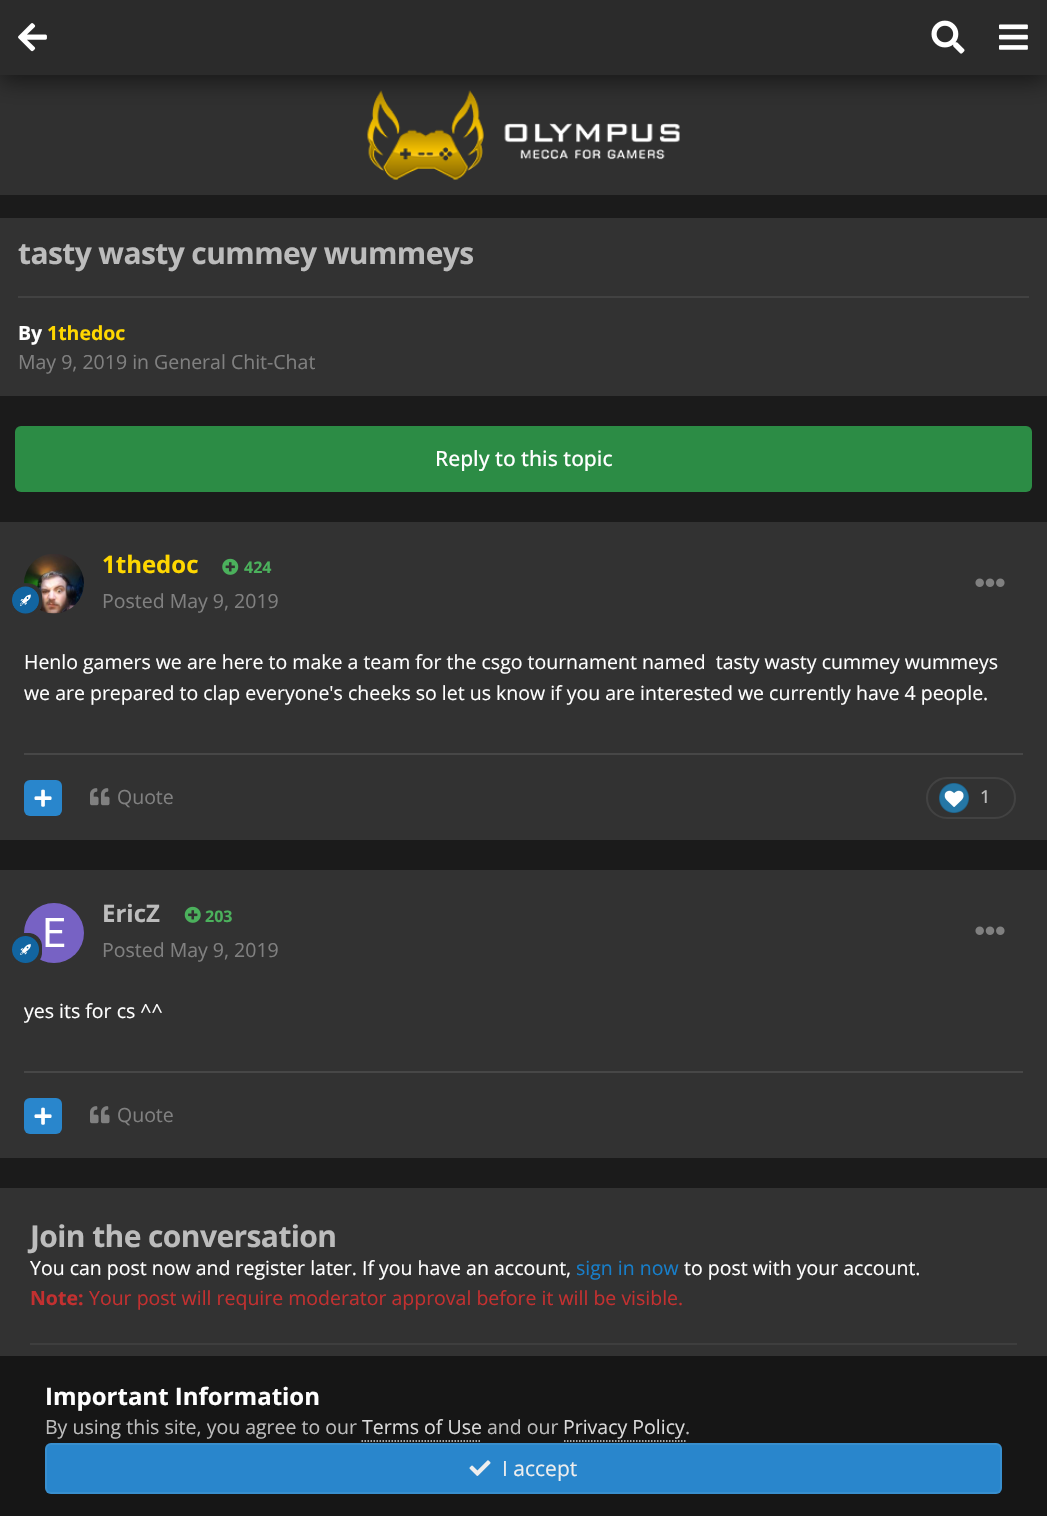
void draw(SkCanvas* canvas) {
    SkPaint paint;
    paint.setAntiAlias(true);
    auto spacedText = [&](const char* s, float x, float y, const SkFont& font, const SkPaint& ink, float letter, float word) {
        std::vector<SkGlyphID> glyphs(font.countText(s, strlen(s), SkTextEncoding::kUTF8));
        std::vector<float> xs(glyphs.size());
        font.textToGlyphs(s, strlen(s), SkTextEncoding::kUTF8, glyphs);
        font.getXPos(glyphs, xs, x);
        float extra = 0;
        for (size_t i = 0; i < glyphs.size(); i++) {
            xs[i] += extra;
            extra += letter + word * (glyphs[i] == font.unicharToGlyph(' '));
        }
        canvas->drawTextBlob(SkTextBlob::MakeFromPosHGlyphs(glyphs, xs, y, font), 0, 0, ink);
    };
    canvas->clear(0xFF1B1B1B);
    paint.setColor(0xFF303030);
    canvas->drawRect(SkRect::MakeXYWH(0, 75, 1047, 120), paint);
    canvas->drawImageRect(SkImages::DeferredFromEncodedData(SkData::MakeFromFileName("img4.png")), SkRect::MakeXYWH(367, 90, 313, 90), SkSamplingOptions());
    paint.setColor(0x87000000);
    paint.setMaskFilter(SkMaskFilter::MakeBlur(kNormal_SkBlurStyle, 11));
    canvas->drawRect(SkRect::MakeXYWH(0, 6, 1047, 75), paint);
    paint.setMaskFilter(nullptr);
    paint.setColor(0xFF2B2B2B);
    canvas->drawRect(SkRect::MakeXYWH(0, 0, 1047, 75), paint);
    canvas->drawImageRect(SkImages::DeferredFromEncodedData(SkData::MakeFromFileName("img1.png")), SkRect::MakeXYWH(18, 23, 29, 29), SkSamplingOptions());
    canvas->drawImageRect(SkImages::DeferredFromEncodedData(SkData::MakeFromFileName("img2.png")), SkRect::MakeXYWH(931, 20, 34, 34), SkSamplingOptions());
    canvas->drawImageRect(SkImages::DeferredFromEncodedData(SkData::MakeFromFileName("img3.png")), SkRect::MakeXYWH(999, 24, 29, 26), SkSamplingOptions());
    paint.setColor(0xFF323232);
    canvas->drawRect(SkRect::MakeXYWH(0, 218, 1047, 178), paint);
    SkFont font1(fontMgr->matchFamilyStyle("Open Sans", SkFontStyle::Bold()), 30);
    font1.setSubpixel(true);
    paint.setColor(0xFFBCBCBC);
    spacedText("tasty wasty cummey wummeys", 18, 264, font1, paint, -0.6f, 0);
    paint.setColor(0xFF424242);
    canvas->drawRect(SkRect::MakeXYWH(18, 296, 1011, 2), paint);
    SkFont font2(fontMgr->matchFamilyStyle("Open Sans", SkFontStyle::Bold()), 19.5f);
    font2.setSubpixel(true);
    paint.setColor(0xFFFFFFFF);
    canvas->drawString("By", 18, 340, font2, paint);
    paint.setColor(0xFFFFD700);
    canvas->drawString("1thedoc", 47, 340, font2, paint);
    SkFont font3(fontMgr->matchFamilyStyle("Open Sans", SkFontStyle::Normal()), 19.5f);
    font3.setSubpixel(true);
    paint.setColor(0xFF808080);
    canvas->drawString("May 9, 2019 in General Chit-Chat", 18, 369, font3, paint);
    paint.setColor(0xFF2C8C45);
    canvas->drawRoundRect(SkRect::MakeXYWH(15, 426, 1017, 66), 6, 6, paint);
    SkFont font4(fontMgr->matchFamilyStyle("Open Sans", SkFontStyle(500, SkFontStyle::kNormal_Width, SkFontStyle::kUpright_Slant)), 21);
    font4.setSubpixel(true);
    paint.setColor(0xFFFFFFFF);
    canvas->drawString("Reply to this topic", 435, 466, font4, paint);
    paint.setColor(0xFF323232);
    canvas->drawRect(SkRect::MakeXYWH(0, 522, 1047, 318), paint);
    canvas->drawImageRect(SkImages::DeferredFromEncodedData(SkData::MakeFromFileName("img5.png")), SkRect::MakeXYWH(24, 554, 60, 60), SkSamplingOptions());
    canvas->drawImageRect(SkImages::DeferredFromEncodedData(SkData::MakeFromFileName("img6.png")), SkRect::MakeXYWH(12, 583, 30, 31), SkSamplingOptions());
    SkFont font5(fontMgr->matchFamilyStyle("Open Sans", SkFontStyle::Bold()), 24);
    font5.setSubpixel(true);
    paint.setColor(0xFFFFD700);
    canvas->drawString("1thedoc", 102, 573, font5, paint);
    canvas->drawImageRect(SkImages::DeferredFromEncodedData(SkData::MakeFromFileName("img7.png")), SkRect::MakeXYWH(222, 558, 17, 17), SkSamplingOptions());
    SkFont font6(fontMgr->matchFamilyStyle("Open Sans", SkFontStyle::Bold()), 16);
    font6.setSubpixel(true);
    paint.setColor(0xFF4BB15C);
    canvas->drawString("424", 244, 573, font6, paint);
    paint.setColor(0xFF808080);
    canvas->drawString("Posted May 9, 2019", 102, 608, font3, paint);
    canvas->drawImageRect(SkImages::DeferredFromEncodedData(SkData::MakeFromFileName("img8.png")), SkRect::MakeXYWH(975, 578, 30, 9), SkSamplingOptions());
    paint.setColor(0xFFFFFFFF);
    canvas->drawString("Henlo gamers we are here to make a team for the csgo tournament named  tasty wasty cummey wummeys", 24, 669, font3, paint);
    canvas->drawString("we are prepared to clap everyone's cheeks so let us know if you are interested we currently have 4 people.", 24, 700, font3, paint);
    paint.setColor(0xFF474747);
    canvas->drawRect(SkRect::MakeXYWH(24, 753, 999, 2), paint);
    paint.setColor(0xFF2986CC);
    canvas->drawRoundRect(SkRect::MakeXYWH(24, 780, 38, 36), 6, 6, paint);
    canvas->drawImageRect(SkImages::DeferredFromEncodedData(SkData::MakeFromFileName("img9.png")), SkRect::MakeXYWH(34, 789, 18, 18), SkSamplingOptions());
    canvas->drawImageRect(SkImages::DeferredFromEncodedData(SkData::MakeFromFileName("img10.png")), SkRect::MakeXYWH(90, 788, 20, 18), SkSamplingOptions());
    paint.setColor(0xFF808080);
    canvas->drawString("Quote", 117, 804, font3, paint);
    paint.setStyle(SkPaint::kStroke_Style);
    paint.setStrokeWidth(2);
    paint.setColor(0xFF424242);
    canvas->drawRoundRect(SkRect::MakeXYWH(927, 778, 88, 40), 20, 20, paint);
    canvas->drawImageRect(SkImages::DeferredFromEncodedData(SkData::MakeFromFileName("img11.png")), SkRect::MakeXYWH(939, 783, 30, 30), SkSamplingOptions());
    SkFont font7(fontMgr->matchFamilyStyle("Open Sans", SkFontStyle(500, SkFontStyle::kNormal_Width, SkFontStyle::kUpright_Slant)), 18);
    font7.setSubpixel(true);
    paint.setStyle(SkPaint::kFill_Style);
    paint.setColor(0xFFBCBCBC);
    canvas->drawString("1", 980, 803, font7, paint);
    paint.setColor(0xFF323232);
    canvas->drawRect(SkRect::MakeXYWH(0, 870, 1047, 288), paint);
    canvas->drawImageRect(SkImages::DeferredFromEncodedData(SkData::MakeFromFileName("img12.png")), SkRect::MakeXYWH(24, 903, 60, 60), SkSamplingOptions());
    canvas->drawImageRect(SkImages::DeferredFromEncodedData(SkData::MakeFromFileName("img13.png")), SkRect::MakeXYWH(12, 933, 30, 30), SkSamplingOptions());
    paint.setColor(0xFFBCBCBC);
    canvas->drawString("EricZ", 102, 922, font5, paint);
    canvas->drawImageRect(SkImages::DeferredFromEncodedData(SkData::MakeFromFileName("img14.png")), SkRect::MakeXYWH(184, 906, 17, 17), SkSamplingOptions());
    paint.setColor(0xFF4BB15C);
    canvas->drawString("203", 205, 922, font6, paint);
    paint.setColor(0xFF808080);
    canvas->drawString("Posted May 9, 2019", 102, 957, font3, paint);
    canvas->drawImageRect(SkImages::DeferredFromEncodedData(SkData::MakeFromFileName("img8.png")), SkRect::MakeXYWH(975, 926, 30, 9), SkSamplingOptions());
    paint.setColor(0xFFFFFFFF);
    canvas->drawString("yes its for cs ^^", 24, 1018, font3, paint);
    paint.setColor(0xFF474747);
    canvas->drawRect(SkRect::MakeXYWH(24, 1071, 999, 2), paint);
    paint.setColor(0xFF2986CC);
    canvas->drawRoundRect(SkRect::MakeXYWH(24, 1098, 38, 36), 6, 6, paint);
    canvas->drawImageRect(SkImages::DeferredFromEncodedData(SkData::MakeFromFileName("img9.png")), SkRect::MakeXYWH(34, 1107, 18, 18), SkSamplingOptions());
    canvas->drawImageRect(SkImages::DeferredFromEncodedData(SkData::MakeFromFileName("img10.png")), SkRect::MakeXYWH(90, 1106, 20, 18), SkSamplingOptions());
    paint.setColor(0xFF808080);
    canvas->drawString("Quote", 117, 1122, font3, paint);
    paint.setColor(0xFF323232);
    canvas->drawRect(SkRect::MakeXYWH(0, 1188, 1047, 168), paint);
    paint.setColor(0xFF3E3E3E);
    canvas->drawRect(SkRect::MakeXYWH(30, 1343, 987, 2), paint);
    paint.setColor(0xFFBCBCBC);
    spacedText("Join the conversation", 30, 1247, font1, paint, -0.6f, 0);
    paint.setColor(0xFFFFFFFF);
    canvas->drawString("You can post now and register later. If you have an account,", 30, 1275, font3, paint);
    paint.setColor(0xFF177EC9);
    canvas->drawString("sign in now", 576, 1275, font3, paint);
    paint.setColor(0xFFFFFFFF);
    canvas->drawString("to post with your account.", 684, 1275, font3, paint);
    paint.setColor(0xFFC33030);
    canvas->drawString("Note:", 30, 1305, font2, paint);
    canvas->drawString("Your post will require moderator approval before it will be visible.", 89, 1305, font3, paint);
    paint.setColor(0xFF161616);
    canvas->drawRect(SkRect::MakeXYWH(0, 1356, 1047, 160), paint);
    paint.setColor(0xFFFFFFFF);
    canvas->drawString("Important Information", 45, 1405, font5, paint);
    paint.setColor(0xFFBCBCBC);
    canvas->drawString("By using this site, you agree to our", 45, 1434, font3, paint);
    paint.setColor(0xFFDADADA);
    canvas->drawString("Terms of Use", 362, 1434, font3, paint);
    paint.setStyle(SkPaint::kStroke_Style);
    paint.setStrokeWidth(1.5f);
    paint.setPathEffect(SkDashPathEffect::Make({{1.5f, 1.5f}}, 0));
    canvas->drawPath(SkPathBuilder().moveTo(361.5f, 1441).lineTo(481.5f, 1441).detach(), paint);
    paint.setPathEffect(nullptr);
    paint.setStyle(SkPaint::kFill_Style);
    paint.setColor(0xFFBCBCBC);
    canvas->drawString("and our", 487, 1434, font3, paint);
    paint.setColor(0xFFDADADA);
    canvas->drawString("Privacy Policy", 563, 1434, font3, paint);
    paint.setStyle(SkPaint::kStroke_Style);
    paint.setPathEffect(SkDashPathEffect::Make({{1.5f, 1.5f}}, 0));
    canvas->drawPath(SkPathBuilder().moveTo(564, 1441).lineTo(685.5f, 1441).detach(), paint);
    paint.setPathEffect(nullptr);
    paint.setStyle(SkPaint::kFill_Style);
    paint.setColor(0xFFBCBCBC);
    canvas->drawString(".", 685, 1434, font3, paint);
    paint.setColor(0xFF2986CC);
    canvas->drawRoundRect(SkRect::MakeXYWH(45, 1443, 957, 51), 6, 6, paint);
    paint.setStyle(SkPaint::kStroke_Style);
    paint.setStrokeWidth(2);
    paint.setColor(0x12FFFFFF);
    canvas->drawRoundRect(SkRect::MakeXYWH(46, 1444, 955, 49), 5, 5, paint);
    canvas->drawImageRect(SkImages::DeferredFromEncodedData(SkData::MakeFromFileName("img15.png")), SkRect::MakeXYWH(469, 1460, 22, 16), SkSamplingOptions());
    SkFont font8(fontMgr->matchFamilyStyle("Open Sans", SkFontStyle::Normal()), 21);
    font8.setSubpixel(true);
    paint.setStyle(SkPaint::kFill_Style);
    paint.setColor(0xFFEEEEEE);
    canvas->drawString("I accept", 502, 1476, font8, paint);
}
